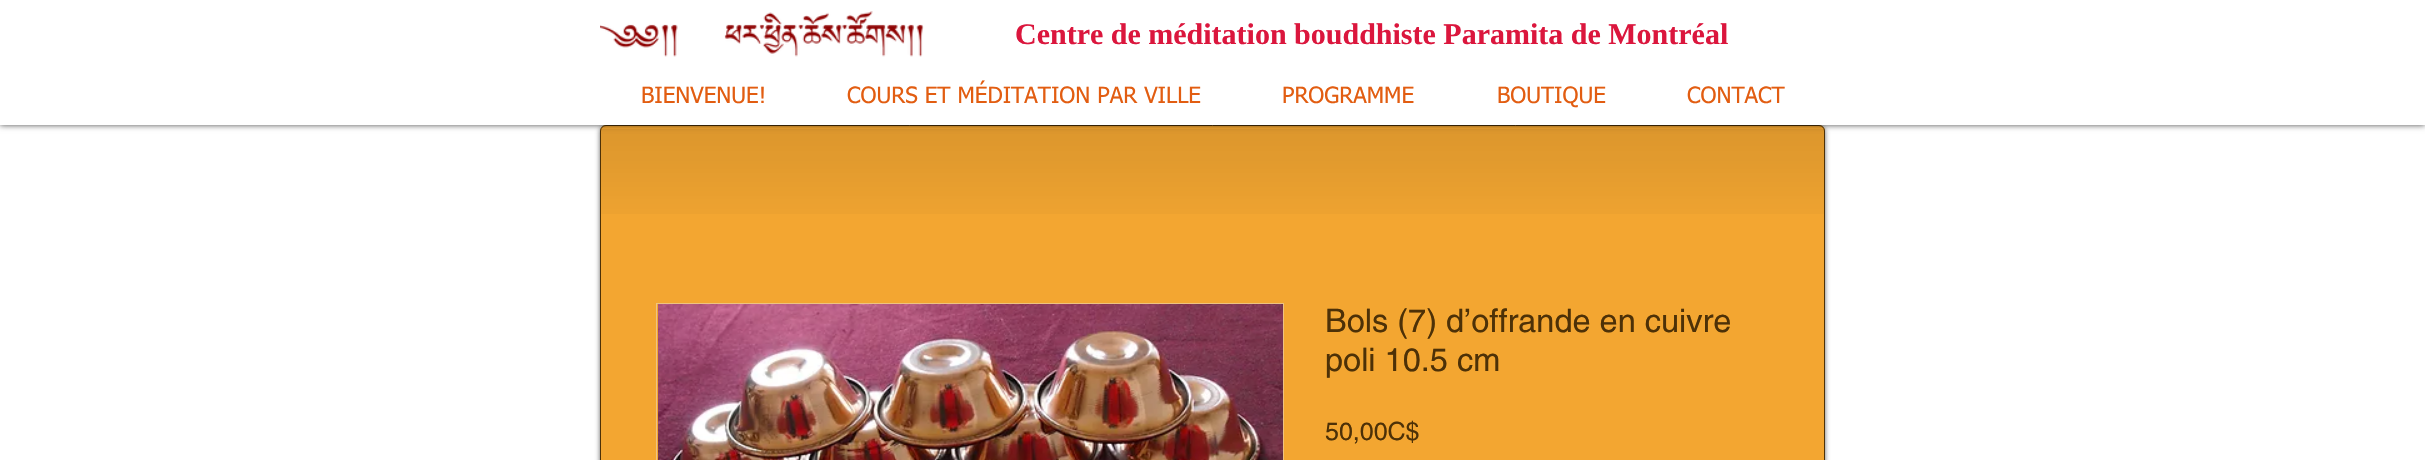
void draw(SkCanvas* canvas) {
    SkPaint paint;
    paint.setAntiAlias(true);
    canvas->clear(0xFFFFFFFF);
    paint.setColor(0x99000000);
    paint.setMaskFilter(SkMaskFilter::MakeBlur(kNormal_SkBlurStyle, 2.5f));
    canvas->drawRoundRect(SkRect::MakeXYWH(600, 126, 1225, 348), 6, 6, paint);
    paint.setMaskFilter(nullptr);
    paint.setColor(0xFFF3A631);
    canvas->drawRoundRect(SkRect::MakeXYWH(600, 125, 1225, 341), 6, 6, paint);
    canvas->drawImageRect(SkImages::DeferredFromEncodedData(SkData::MakeFromFileName("img2.png")), SkRect::MakeXYWH(600, 129, 1225, 85), SkSamplingOptions());
    paint.setStyle(SkPaint::kStroke_Style);
    paint.setStrokeWidth(1);
    paint.setColor(0xFF4D3107);
    canvas->drawRoundRect(SkRect::MakeXYWH(600.5f, 125.5f, 1224, 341), 5.5f, 5.5f, paint);
    paint.setStyle(SkPaint::kFill_Style);
    paint.setColor(0xB3000000);
    paint.setMaskFilter(SkMaskFilter::MakeBlur(kNormal_SkBlurStyle, 3));
    canvas->drawRect(SkRect::MakeXYWH(0, 0, 2425, 125), paint);
    paint.setMaskFilter(nullptr);
    paint.setColor(0xFFFFFFFF);
    canvas->drawRect(SkRect::MakeXYWH(0, 0, 2425, 125), paint);
    canvas->drawImageRect(SkImages::DeferredFromEncodedData(SkData::MakeFromFileName("img1.png")), SkRect::MakeXYWH(600, 11, 324, 46), SkSamplingOptions());
    SkFont font1(fontMgr->matchFamilyStyle("Liberation Serif", SkFontStyle::Bold()), 30);
    font1.setSubpixel(true);
    paint.setColor(0xFFDB163D);
    canvas->drawString("Centre de méditation bouddhiste Paramita de Montréal", 1015, 44, font1, paint);
    SkFont font2(fontMgr->matchFamilyStyle("tahoma", SkFontStyle::Normal()), 22.5f);
    font2.setSubpixel(true);
    paint.setColor(0xFFE25D11);
    canvas->drawString("BIENVENUE!", 641, 103, font2, paint);
    canvas->drawString("COURS ET MÉDITATION PAR VILLE", 847, 103, font2, paint);
    canvas->drawString("PROGRAMME", 1282, 103, font2, paint);
    canvas->drawString("BOUTIQUE", 1497, 103, font2, paint);
    canvas->drawString("CONTACT", 1687, 103, font2, paint);
    paint.setStyle(SkPaint::kStroke_Style);
    paint.setColor(0xFFEEC382);
    canvas->drawRect(SkRect::MakeXYWH(656.5f, 303.5f, 627, 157), paint);
    canvas->drawImageRect(SkImages::DeferredFromEncodedData(SkData::MakeFromFileName("img3.png")), SkRect::MakeXYWH(658, 304, 625, 156), SkSamplingOptions());
    SkFont font3(fontMgr->matchFamilyStyle("helvetica", SkFontStyle::Normal()), 32.5f);
    font3.setSubpixel(true);
    paint.setStyle(SkPaint::kFill_Style);
    paint.setColor(0xFF4D3107);
    canvas->drawString("Bols (7) d’offrande en cuivre", 1325, 332, font3, paint);
    canvas->drawString("poli 10.5 cm", 1325, 371, font3, paint);
    SkFont font4(fontMgr->matchFamilyStyle("helvetica", SkFontStyle::Normal()), 25);
    font4.setSubpixel(true);
    canvas->drawString("50,00C$", 1325, 440, font4, paint);
}
